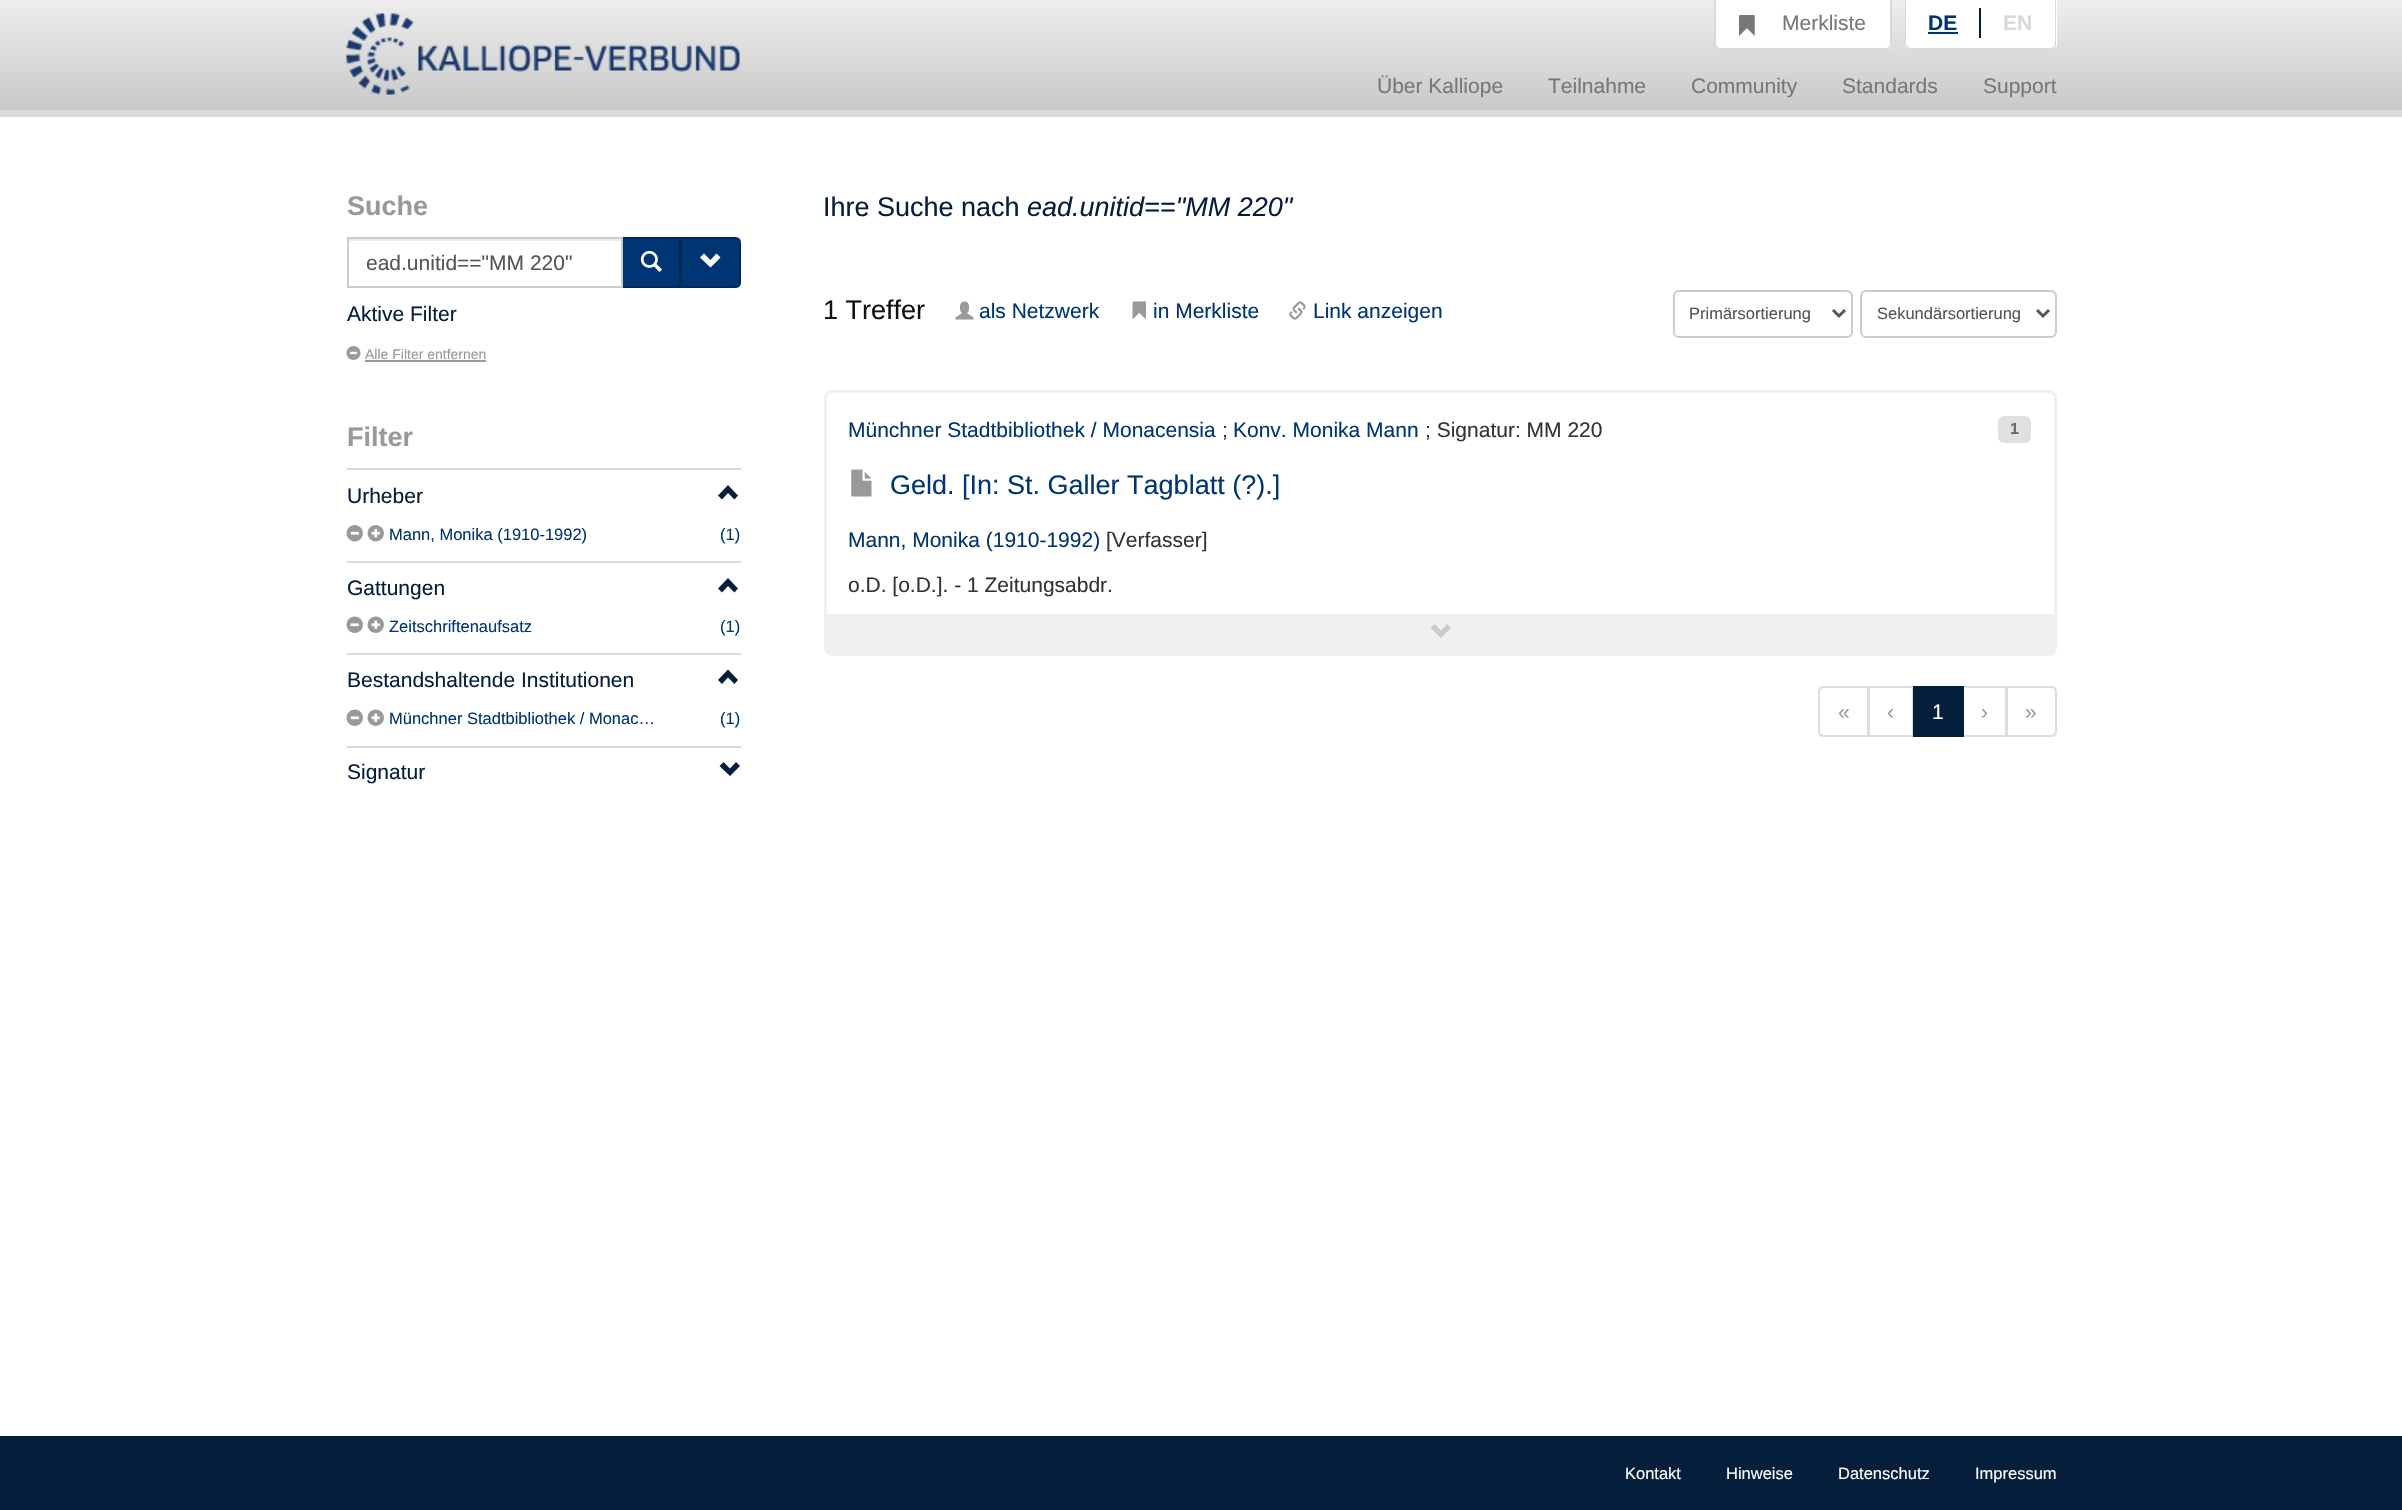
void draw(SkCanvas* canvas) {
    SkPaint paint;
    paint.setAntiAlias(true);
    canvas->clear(0xFFFFFFFF);
    {
        const SkColor colors[] = {0xFFEDEDED, 0xFFC9C9C9};
        const float stops[] = {0, 1};
        const SkPoint ends[] = {{1202, 0}, {1202, 110}};
        paint.setShader(SkGradientShader::MakeLinear(ends, colors, stops, 2, SkTileMode::kClamp));
        paint.setAlpha(255);
    }
    canvas->drawRect(SkRect::MakeXYWH(0, 0, 2402, 110), paint);
    paint.setShader(nullptr);
    paint.setColor(0xFFD9D9D9);
    canvas->drawRect(SkRect::MakeXYWH(0, 110, 2402, 7), paint);
    canvas->drawImageRect(SkImages::DeferredFromEncodedData(SkData::MakeFromFileName("img1.png")), SkRect::MakeXYWH(346, 13, 394, 82), SkSamplingOptions());
    paint.setColor(0xFFFFFFFF);
    canvas->drawPath(SkPathBuilder().moveTo(1715, -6).lineTo(1892, -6).lineTo(1892, 44).cubicTo(1892, 47.5f, 1889.5f, 50, 1886, 50).lineTo(1721, 50).cubicTo(1717.5f, 50, 1715, 47.5f, 1715, 44).close().detach(), paint);
    paint.setColor(0xFFD9D9D9);
    canvas->drawPath(SkPathBuilder(SkPathFillType::kEvenOdd).moveTo(1714, -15).lineTo(1892, -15).lineTo(1892, 44).cubicTo(1892, 47, 1889, 50, 1886, 50).lineTo(1720, 50).cubicTo(1717, 50, 1714, 47, 1714, 44).close().moveTo(1716, -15).lineTo(1890, -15).lineTo(1890, 44).cubicTo(1890, 46, 1888, 48, 1886, 48).lineTo(1720, 48).cubicTo(1718, 48, 1716, 46, 1716, 44).close().detach(), paint);
    canvas->drawImageRect(SkImages::DeferredFromEncodedData(SkData::MakeFromFileName("img2.png")), SkRect::MakeXYWH(1739, 15, 16, 21), SkSamplingOptions());
    SkFont font1(fontMgr->matchFamilyStyle("Liberation Sans", SkFontStyle::Normal()), 21);
    font1.setSubpixel(true);
    paint.setColor(0xFF777777);
    canvas->drawString("Merkliste", 1782, 30, font1, paint);
    paint.setColor(0xFFFFFFFF);
    canvas->drawPath(SkPathBuilder().moveTo(1905, -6).lineTo(2057, -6).lineTo(2057, 44).cubicTo(2057, 47.5f, 2054.5f, 50, 2051, 50).lineTo(1911, 50).cubicTo(1907.5f, 50, 1905, 47.5f, 1905, 44).close().detach(), paint);
    paint.setColor(0xFFD9D9D9);
    canvas->drawPath(SkPathBuilder().moveTo(2056, -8).lineTo(2056, 44).cubicTo(2056, 45, 2056, 47, 2055, 48).lineTo(2054, 47).cubicTo(2055, 46, 2055, 45, 2055, 44).lineTo(2055, -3).close().detach(), paint);
    paint.setColor(0x26000000);
    canvas->drawPath(SkPathBuilder().moveTo(1909, 50).lineTo(1907, 48).lineTo(1908, 47).lineTo(1911, 48).lineTo(2051, 48).lineTo(2054, 47).lineTo(2055, 48).lineTo(2053, 50).close().detach(), paint);
    canvas->drawPath(SkPathBuilder().moveTo(1906, -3).lineTo(1906, 44).lineTo(1908, 47).lineTo(1907, 48).cubicTo(1906, 47, 1905, 45, 1905, 44).lineTo(1905, -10).close().detach(), paint);
    paint.setColor(0xFF051E3C);
    canvas->drawRect(SkRect::MakeXYWH(1979, 8, 2, 30), paint);
    SkFont font2(fontMgr->matchFamilyStyle("Liberation Sans", SkFontStyle::Bold()), 21);
    font2.setSubpixel(true);
    paint.setColor(0xFF003574);
    canvas->drawString("DE", 1928, 30, font2, paint);
    canvas->drawRect(SkRect::MakeXYWH(1928, 32, 30, 2), paint);
    paint.setColor(0xFFD9D9D9);
    canvas->drawString("EN", 2003, 30, font2, paint);
    paint.setColor(0xFF777777);
    canvas->drawString("Über Kalliope", 1377, 93, font1, paint);
    canvas->drawString("Teilnahme", 1548, 93, font1, paint);
    canvas->drawString("Community", 1691, 93, font1, paint);
    canvas->drawString("Standards", 1842, 93, font1, paint);
    canvas->drawString("Support", 1983, 93, font1, paint);
    SkFont font3(fontMgr->matchFamilyStyle("Liberation Sans", SkFontStyle::Bold()), 27);
    font3.setSubpixel(true);
    paint.setColor(0xFF999999);
    canvas->drawString("Suche", 347, 215, font3, paint);
    paint.setColor(0xFFECECEC);
    canvas->drawRect(SkRect::MakeXYWH(348, 239, 273, 2), paint);
    paint.setColor(0xFF003574);
    canvas->drawRect(SkRect::MakeXYWH(622, 238, 58, 49), paint);
    paint.setStyle(SkPaint::kStroke_Style);
    paint.setStrokeWidth(2);
    paint.setColor(0xFF00295A);
    canvas->drawRect(SkRect::MakeXYWH(622, 238, 58, 49), paint);
    paint.setColor(0xFFCCCCCC);
    canvas->drawRect(SkRect::MakeXYWH(348, 238, 274, 49), paint);
    paint.setStyle(SkPaint::kFill_Style);
    paint.setColor(0xFF555555);
    canvas->drawString("ead.unitid==\"MM 220\"", 366, 270, font1, paint);
    canvas->drawImageRect(SkImages::DeferredFromEncodedData(SkData::MakeFromFileName("img3.png")), SkRect::MakeXYWH(640, 250, 22, 22), SkSamplingOptions());
    paint.setColor(0xFF003574);
    canvas->drawPath(SkPathBuilder().moveTo(681, 238).lineTo(735, 238).cubicTo(738, 238, 740, 240, 740, 243).lineTo(740, 282).cubicTo(740, 285, 738, 287, 735, 287).lineTo(681, 287).close().detach(), paint);
    paint.setStyle(SkPaint::kStroke_Style);
    paint.setColor(0xFF00295A);
    canvas->drawPath(SkPathBuilder().moveTo(681, 238).lineTo(735, 238).cubicTo(738, 238, 740, 240, 740, 243).lineTo(740, 282).cubicTo(740, 285, 738, 287, 735, 287).lineTo(681, 287).close().detach(), paint);
    paint.setStyle(SkPaint::kFill_Style);
    paint.setColor(0xFFFFFFFF);
    canvas->drawPath(SkPathBuilder().moveTo(700, 257.5f).lineTo(710.5f, 267.5f).lineTo(720.5f, 257.5f).lineTo(716.5f, 253.5f).lineTo(710.5f, 260).lineTo(704, 253.5f).close().detach(), paint);
    paint.setColor(0xFF051E3C);
    canvas->drawString("Aktive Filter", 347, 321, font1, paint);
    canvas->drawImageRect(SkImages::DeferredFromEncodedData(SkData::MakeFromFileName("img4.png")), SkRect::MakeXYWH(346, 346, 15, 14), SkSamplingOptions());
    SkFont font4(fontMgr->matchFamilyStyle("Liberation Sans", SkFontStyle::Normal()), 14);
    font4.setSubpixel(true);
    paint.setColor(0xFF999999);
    canvas->drawString("Alle Filter entfernen", 365, 359, font4, paint);
    canvas->drawRect(SkRect::MakeXYWH(365, 360, 121, 2), paint);
    canvas->drawString("Filter", 347, 446, font3, paint);
    paint.setColor(0xFFD9D9D9);
    canvas->drawRect(SkRect::MakeXYWH(347, 468, 394, 2), paint);
    paint.setColor(0xFF051E3C);
    canvas->drawString("Urheber", 347, 503, font1, paint);
    canvas->drawPath(SkPathBuilder().moveTo(718, 495.5f).lineTo(722, 499.5f).lineTo(728, 493).lineTo(734.5f, 499.5f).lineTo(738, 495.5f).lineTo(728, 485).close().detach(), paint);
    canvas->drawImageRect(SkImages::DeferredFromEncodedData(SkData::MakeFromFileName("img5.png")), SkRect::MakeXYWH(346, 525, 17, 17), SkSamplingOptions());
    canvas->drawImageRect(SkImages::DeferredFromEncodedData(SkData::MakeFromFileName("img6.png")), SkRect::MakeXYWH(367, 525, 17, 17), SkSamplingOptions());
    SkFont font5(fontMgr->matchFamilyStyle("Liberation Sans", SkFontStyle::Normal()), 16.5f);
    font5.setSubpixel(true);
    paint.setColor(0xFF003574);
    canvas->drawString("Mann, Monika (1910-1992)", 389, 540, font5, paint);
    canvas->drawString("(1)", 720, 540, font5, paint);
    paint.setColor(0xFFD9D9D9);
    canvas->drawRect(SkRect::MakeXYWH(347, 561, 394, 2), paint);
    paint.setColor(0xFF051E3C);
    canvas->drawString("Gattungen", 347, 595, font1, paint);
    canvas->drawPath(SkPathBuilder().moveTo(718, 588.5f).lineTo(722, 592.5f).lineTo(728, 586).lineTo(734.5f, 592.5f).lineTo(738, 588.5f).lineTo(728, 578).close().detach(), paint);
    canvas->drawImageRect(SkImages::DeferredFromEncodedData(SkData::MakeFromFileName("img7.png")), SkRect::MakeXYWH(346, 616, 17, 17), SkSamplingOptions());
    canvas->drawImageRect(SkImages::DeferredFromEncodedData(SkData::MakeFromFileName("img8.png")), SkRect::MakeXYWH(367, 616, 17, 17), SkSamplingOptions());
    paint.setColor(0xFF003574);
    canvas->drawString("Zeitschriftenaufsatz", 389, 632, font5, paint);
    canvas->drawString("(1)", 720, 632, font5, paint);
    paint.setColor(0xFFD9D9D9);
    canvas->drawRect(SkRect::MakeXYWH(347, 653, 394, 2), paint);
    paint.setColor(0xFF051E3C);
    canvas->drawString("Bestandshaltende Institutionen", 347, 687, font1, paint);
    canvas->drawPath(SkPathBuilder().moveTo(718, 680).lineTo(722, 684).lineTo(728, 677.5f).lineTo(734.5f, 684).lineTo(738, 680).lineTo(728, 669.5f).close().detach(), paint);
    canvas->drawImageRect(SkImages::DeferredFromEncodedData(SkData::MakeFromFileName("img7.png")), SkRect::MakeXYWH(346, 709, 17, 17), SkSamplingOptions());
    canvas->drawImageRect(SkImages::DeferredFromEncodedData(SkData::MakeFromFileName("img8.png")), SkRect::MakeXYWH(367, 709, 17, 17), SkSamplingOptions());
    paint.setColor(0xFF003574);
    canvas->drawString("Münchner Stadtbibliothek / Monac…", 389, 724, font5, paint);
    canvas->drawString("(1)", 720, 724, font5, paint);
    paint.setColor(0xFFD9D9D9);
    canvas->drawRect(SkRect::MakeXYWH(347, 746, 394, 2), paint);
    paint.setColor(0xFF051E3C);
    canvas->drawString("Signatur", 347, 779, font1, paint);
    canvas->drawPath(SkPathBuilder().moveTo(719.5f, 766).lineTo(730, 776).lineTo(740, 766).lineTo(736, 762).lineTo(730, 768.5f).lineTo(723.5f, 762).close().detach(), paint);
    SkFont font6(fontMgr->matchFamilyStyle("Liberation Sans", SkFontStyle::Normal()), 27);
    font6.setSubpixel(true);
    canvas->drawString("Ihre Suche nach", 823, 216, font6, paint);
    SkFont font7(fontMgr->matchFamilyStyle("Liberation Sans", SkFontStyle::Italic()), 27);
    font7.setSubpixel(true);
    canvas->drawString("ead.unitid==\"MM 220\"", 1027, 216, font7, paint);
    paint.setColor(0xFF111111);
    canvas->drawString("1 Treffer", 823, 319, font6, paint);
    canvas->drawImageRect(SkImages::DeferredFromEncodedData(SkData::MakeFromFileName("img9.png")), SkRect::MakeXYWH(955, 301, 19, 19), SkSamplingOptions());
    paint.setColor(0xFF003574);
    canvas->drawString("als Netzwerk", 979, 318, font1, paint);
    canvas->drawImageRect(SkImages::DeferredFromEncodedData(SkData::MakeFromFileName("img10.png")), SkRect::MakeXYWH(1132, 301, 14, 19), SkSamplingOptions());
    canvas->drawString("in Merkliste", 1153, 318, font1, paint);
    canvas->drawImageRect(SkImages::DeferredFromEncodedData(SkData::MakeFromFileName("img11.png")), SkRect::MakeXYWH(1289, 301, 17, 19), SkSamplingOptions());
    canvas->drawString("Link anzeigen", 1313, 318, font1, paint);
    paint.setColor(0xFFECECEC);
    canvas->drawPath(SkPathBuilder().moveTo(1678, 292).lineTo(1846, 292).cubicTo(1849, 292, 1851, 295, 1851, 297).cubicTo(1851, 294, 1850, 292, 1847, 291).lineTo(1679, 291).cubicTo(1676, 291, 1674, 294, 1674, 297).cubicTo(1674, 295, 1676, 292, 1678, 292).close().detach(), paint);
    paint.setStyle(SkPaint::kStroke_Style);
    paint.setColor(0xFFCCCCCC);
    canvas->drawRoundRect(SkRect::MakeXYWH(1674, 291, 178, 46), 5, 5, paint);
    paint.setStrokeWidth(3);
    paint.setColor(0xFF555555);
    canvas->drawPath(SkPathBuilder().moveTo(1833, 310).lineTo(1839, 316).lineTo(1845, 310).detach(), paint);
    paint.setStyle(SkPaint::kFill_Style);
    canvas->drawString("Primärsortierung", 1689, 319, font5, paint);
    paint.setColor(0xFFECECEC);
    canvas->drawPath(SkPathBuilder().moveTo(1866, 292).lineTo(2050, 292).cubicTo(2053, 292, 2055, 295, 2055, 297).lineTo(2055, 296).cubicTo(2055, 293, 2053, 291, 2050, 291).lineTo(1867, 291).cubicTo(1864, 291, 1862, 293, 1862, 296).lineTo(1862, 297).cubicTo(1862, 295, 1864, 292, 1866, 292).close().detach(), paint);
    paint.setStyle(SkPaint::kStroke_Style);
    paint.setStrokeWidth(2);
    paint.setColor(0xFFCCCCCC);
    canvas->drawRoundRect(SkRect::MakeXYWH(1861, 291, 195, 46), 5, 5, paint);
    paint.setStrokeWidth(3);
    paint.setColor(0xFF555555);
    canvas->drawPath(SkPathBuilder().moveTo(2037, 310).lineTo(2043, 316).lineTo(2049, 310).detach(), paint);
    paint.setStyle(SkPaint::kFill_Style);
    canvas->drawString("Sekundärsortierung", 1877, 319, font5, paint);
    paint.setStyle(SkPaint::kStroke_Style);
    paint.setColor(0xFFF0F0F0);
    canvas->drawRoundRect(SkRect::MakeXYWH(825.5f, 391.5f, 1230, 263), 6.5f, 6.5f, paint);
    paint.setStyle(SkPaint::kFill_Style);
    paint.setColor(0xFF003574);
    canvas->drawString("Münchner Stadtbibliothek / Monacensia", 848, 437, font1, paint);
    paint.setColor(0xFF333333);
    canvas->drawString(";", 1222, 437, font1, paint);
    paint.setColor(0xFF003574);
    canvas->drawString("Konv. Monika Mann", 1233, 437, font1, paint);
    paint.setColor(0xFF333333);
    canvas->drawString("; Signatur: MM 220", 1425, 437, font1, paint);
    paint.setColor(0xFFE0E0E0);
    canvas->drawRoundRect(SkRect::MakeXYWH(1998, 416, 33, 27), 6, 6, paint);
    SkFont font8(fontMgr->matchFamilyStyle("Liberation Sans", SkFontStyle::Bold()), 16);
    font8.setSubpixel(true);
    paint.setColor(0xFF666666);
    canvas->drawString("1", 2010, 434, font8, paint);
    canvas->drawImageRect(SkImages::DeferredFromEncodedData(SkData::MakeFromFileName("img12.png")), SkRect::MakeXYWH(851, 469, 21, 28), SkSamplingOptions());
    paint.setColor(0xFF003574);
    canvas->drawString("Geld. [In: St. Galler Tagblatt (?).]", 890, 494, font6, paint);
    canvas->drawString("Mann, Monika (1910-1992)", 848, 547, font1, paint);
    paint.setColor(0xFF333333);
    canvas->drawString("[Verfasser]", 1106, 547, font1, paint);
    canvas->drawString("o.D. [o.D.]. - 1 Zeitungsabdr.", 848, 592, font1, paint);
    paint.setColor(0xFFF0F0F0);
    canvas->drawRect(SkRect::MakeXYWH(827, 614, 1227, 39), paint);
    paint.setColor(0xFFCCCCCC);
    canvas->drawPath(SkPathBuilder().moveTo(1430.5f, 628).lineTo(1441, 638).lineTo(1451, 628).lineTo(1447, 624).lineTo(1441, 630.5f).lineTo(1434.5f, 624).close().detach(), paint);
    paint.setStyle(SkPaint::kStroke_Style);
    paint.setStrokeWidth(2);
    paint.setColor(0xFFDDDDDD);
    canvas->drawPath(SkPathBuilder().moveTo(1824, 687).lineTo(1868, 687).lineTo(1868, 736).lineTo(1824, 736).cubicTo(1821, 736, 1819, 734, 1819, 731).lineTo(1819, 692).cubicTo(1819, 689, 1821, 687, 1824, 687).close().detach(), paint);
    paint.setStyle(SkPaint::kFill_Style);
    paint.setColor(0xFF999999);
    canvas->drawString("«", 1838, 719, font1, paint);
    paint.setStyle(SkPaint::kStroke_Style);
    paint.setColor(0xFFDDDDDD);
    canvas->drawRect(SkRect::MakeXYWH(1869, 687, 44, 49), paint);
    paint.setStyle(SkPaint::kFill_Style);
    paint.setColor(0xFF999999);
    canvas->drawString("‹", 1887, 719, font1, paint);
    paint.setStyle(SkPaint::kStroke_Style);
    paint.setColor(0xFFDDDDDD);
    canvas->drawRect(SkRect::MakeXYWH(1963, 687, 43, 49), paint);
    paint.setStyle(SkPaint::kFill_Style);
    paint.setColor(0xFF051E3C);
    canvas->drawRect(SkRect::MakeXYWH(1913, 686, 51, 51), paint);
    paint.setColor(0xFFFFFFFF);
    canvas->drawString("1", 1932, 719, font1, paint);
    paint.setColor(0xFF999999);
    canvas->drawString("›", 1981, 719, font1, paint);
    paint.setColor(0xFFFFFFFF);
    canvas->drawPath(SkPathBuilder().moveTo(2007, 687).lineTo(2051, 687).cubicTo(2054, 687, 2056, 689, 2056, 692).lineTo(2056, 731).cubicTo(2056, 734, 2054, 736, 2051, 736).lineTo(2007, 736).close().detach(), paint);
    paint.setStyle(SkPaint::kStroke_Style);
    paint.setColor(0xFFDDDDDD);
    canvas->drawPath(SkPathBuilder().moveTo(2007, 687).lineTo(2051, 687).cubicTo(2054, 687, 2056, 689, 2056, 692).lineTo(2056, 731).cubicTo(2056, 734, 2054, 736, 2051, 736).lineTo(2007, 736).close().detach(), paint);
    paint.setStyle(SkPaint::kFill_Style);
    paint.setColor(0xFF999999);
    canvas->drawString("»", 2025, 719, font1, paint);
    paint.setColor(0xFF051E3C);
    canvas->drawRect(SkRect::MakeXYWH(0, 1436, 2402, 74), paint);
    paint.setColor(0xFFFFFFFF);
    canvas->drawString("Kontakt", 1625, 1479, font5, paint);
    canvas->drawString("Hinweise", 1726, 1479, font5, paint);
    canvas->drawString("Datenschutz", 1838, 1479, font5, paint);
    canvas->drawString("Impressum", 1975, 1479, font5, paint);
}
